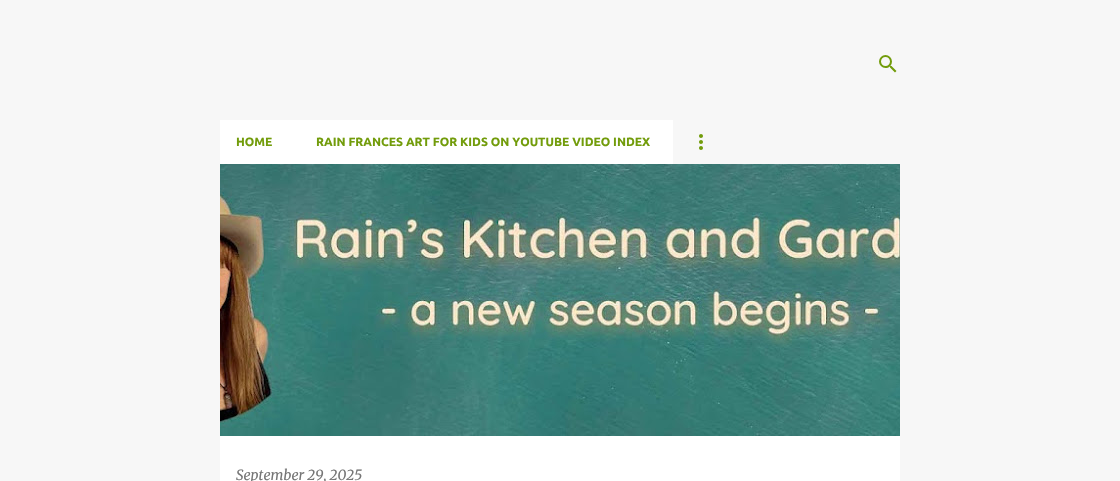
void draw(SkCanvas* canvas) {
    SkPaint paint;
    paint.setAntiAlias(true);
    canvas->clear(0xFFF7F7F7);
    canvas->drawImageRect(SkImages::DeferredFromEncodedData(SkData::MakeFromFileName("img1.png")), SkRect::MakeXYWH(879, 55, 18, 18), SkSamplingOptions());
    paint.setColor(0xFFFFFFFF);
    canvas->drawRect(SkRect::MakeXYWH(220, 120, 453, 44), paint);
    SkFont font1(fontMgr->matchFamilyStyle("Ubuntu", SkFontStyle::Bold()), 12);
    font1.setSubpixel(true);
    paint.setColor(0xFF729C0B);
    canvas->drawString("HOME", 236, 146, font1, paint);
    canvas->drawString("RAIN FRANCES ART FOR KIDS ON YOUTUBE VIDEO INDEX", 316, 146, font1, paint);
    canvas->drawImageRect(SkImages::DeferredFromEncodedData(SkData::MakeFromFileName("img2.png")), SkRect::MakeXYWH(699, 134, 4, 16), SkSamplingOptions());
    paint.setColor(0xFFFFFFFF);
    canvas->drawRect(SkRect::MakeXYWH(220, 436, 680, 45), paint);
    canvas->drawImageRect(SkImages::DeferredFromEncodedData(SkData::MakeFromFileName("img3.png")), SkRect::MakeXYWH(220, 164, 680, 272), SkSamplingOptions());
    SkFont font2(fontMgr->matchFamilyStyle("Merriweather", SkFontStyle::Italic()), 14);
    font2.setSubpixel(true);
    paint.setColor(0xFF757575);
    canvas->drawString("September 29, 2025", 236, 480, font2, paint);
}
